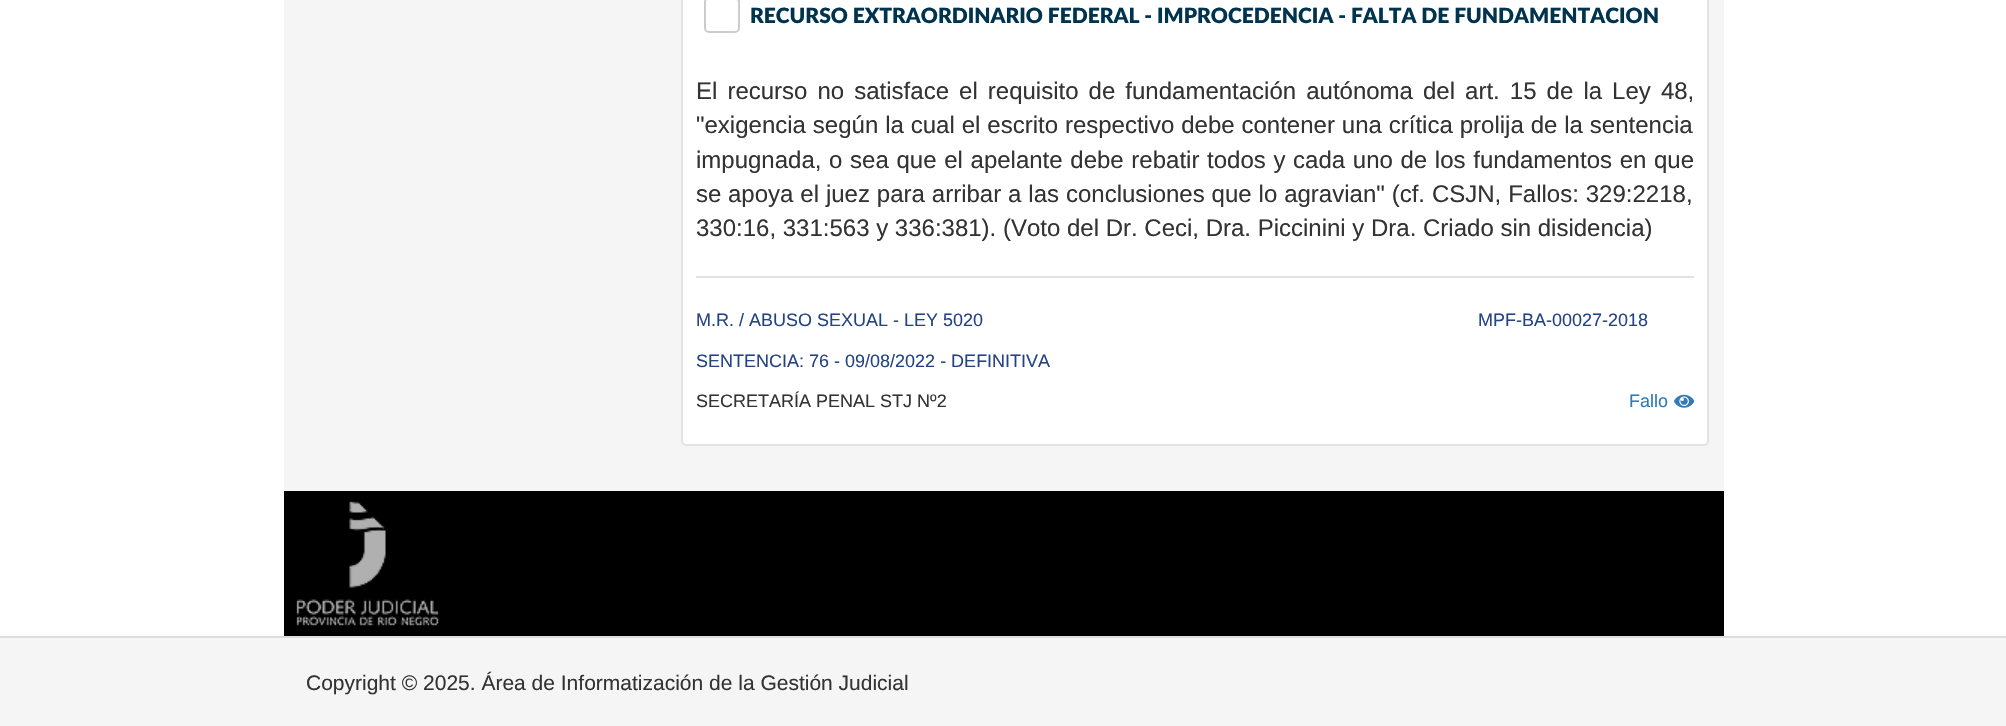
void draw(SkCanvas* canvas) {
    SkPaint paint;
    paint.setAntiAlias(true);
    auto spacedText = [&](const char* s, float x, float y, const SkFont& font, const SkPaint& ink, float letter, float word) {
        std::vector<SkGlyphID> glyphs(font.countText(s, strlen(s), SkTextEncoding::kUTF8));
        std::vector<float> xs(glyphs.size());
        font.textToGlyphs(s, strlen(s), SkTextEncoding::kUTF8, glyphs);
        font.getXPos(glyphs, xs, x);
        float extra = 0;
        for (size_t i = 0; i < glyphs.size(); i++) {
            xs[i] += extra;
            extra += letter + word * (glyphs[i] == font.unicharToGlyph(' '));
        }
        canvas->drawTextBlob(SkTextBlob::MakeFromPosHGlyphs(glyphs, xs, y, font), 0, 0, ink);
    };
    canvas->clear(0xFFFFFFFF);
    paint.setColor(0xFFF5F5F5);
    canvas->drawRect(SkRect::MakeXYWH(284, 0, 1440, 491), paint);
    paint.setColor(0xFFFFFFFF);
    canvas->drawRoundRect(SkRect::MakeXYWH(682, -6, 1026, 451), 4, 4, paint);
    paint.setStyle(SkPaint::kStroke_Style);
    paint.setStrokeWidth(2);
    paint.setColor(0xFFE3E3E3);
    canvas->drawRoundRect(SkRect::MakeXYWH(682, -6, 1026, 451), 4, 4, paint);
    paint.setStyle(SkPaint::kFill_Style);
    paint.setColor(0xFFECECEC);
    canvas->drawPath(SkPathBuilder().moveTo(708, 0).lineTo(735, 0).cubicTo(737, 0, 738, 1, 738, 3).cubicTo(738, -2, 734.5f, -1, 730.5f, -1).lineTo(712.5f, -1).cubicTo(708.5f, -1, 705, -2, 705, 3).cubicTo(705, 1, 706, 0, 708, 0).close().detach(), paint);
    paint.setStyle(SkPaint::kStroke_Style);
    paint.setColor(0xFFCCCCCC);
    canvas->drawRoundRect(SkRect::MakeXYWH(705, -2, 34, 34), 4, 4, paint);
    SkFont font1(fontMgr->matchFamilyStyle("Lato", SkFontStyle(900, SkFontStyle::kNormal_Width, SkFontStyle::kUpright_Slant)), 21);
    font1.setSubpixel(true);
    paint.setStyle(SkPaint::kFill_Style);
    paint.setColor(0xFF00334E);
    canvas->drawString("RECURSO EXTRAORDINARIO FEDERAL - IMPROCEDENCIA - FALTA DE FUNDAMENTACION", 750, 23, font1, paint);
    SkFont font2(fontMgr->matchFamilyStyle("Liberation Sans", SkFontStyle::Normal()), 24);
    font2.setSubpixel(true);
    paint.setColor(0xFF333333);
    spacedText("El recurso no satisface el requisito de fundamentación autónoma del art. 15 de la Ley 48,", 696, 99, font2, paint, 0, 3.4f);
    spacedText("\"exigencia según la cual el escrito respectivo debe contener una crítica prolija de la sentencia", 696, 133, font2, paint, 0, 0.25f);
    spacedText("impugnada, o sea que el apelante debe rebatir todos y cada uno de los fundamentos en que", 696, 168, font2, paint, 0, 1);
    canvas->drawString("se", 696, 202, font2, paint);
    spacedText("apoya el juez para arribar a las conclusiones que lo agravian\" (cf. CSJN, Fallos: 329:2218,", 728, 202, font2, paint, 0, 0.25f);
    canvas->drawString("330:16, 331:563 y 336:381). (Voto del Dr. Ceci, Dra. Piccinini y Dra. Criado sin disidencia)", 696, 236, font2, paint);
    paint.setColor(0xFFE2E2E2);
    canvas->drawRect(SkRect::MakeXYWH(696, 276, 998, 2), paint);
    SkFont font3(fontMgr->matchFamilyStyle("Liberation Sans", SkFontStyle::Normal()), 18);
    font3.setSubpixel(true);
    paint.setColor(0xFF244384);
    canvas->drawString("M.R. / ABUSO SEXUAL - LEY 5020", 696, 326, font3, paint);
    canvas->drawString("MPF-BA-00027-2018", 1478, 326, font3, paint);
    canvas->drawString("SENTENCIA: 76 - 09/08/2022 - DEFINITIVA", 696, 367, font3, paint);
    paint.setColor(0xFF333333);
    canvas->drawString("SECRETARÍA PENAL STJ Nº2", 696, 407, font3, paint);
    paint.setColor(0xFF337AB7);
    canvas->drawString("Fallo", 1629, 407, font3, paint);
    canvas->drawImageRect(SkImages::DeferredFromEncodedData(SkData::MakeFromFileName("img1.png")), SkRect::MakeXYWH(1674, 394, 21, 14), SkSamplingOptions());
    paint.setColor(0xFF000000);
    canvas->drawRect(SkRect::MakeXYWH(284, 491, 1440, 145), paint);
    canvas->drawImageRect(SkImages::DeferredFromEncodedData(SkData::MakeFromFileName("img2.png")), SkRect::MakeXYWH(296, 501, 143, 125), SkSamplingOptions());
    paint.setColor(0xFFF5F5F5);
    canvas->drawRect(SkRect::MakeXYWH(0, 638, 2006, 88), paint);
    paint.setColor(0xFFDDDDDD);
    canvas->drawRect(SkRect::MakeXYWH(0, 636, 2006, 2), paint);
    SkFont font4(fontMgr->matchFamilyStyle("Liberation Sans", SkFontStyle::Normal()), 21);
    font4.setSubpixel(true);
    paint.setColor(0xFF333333);
    canvas->drawString("Copyright © 2025. Área de Informatización de la Gestión Judicial", 306, 690, font4, paint);
}
